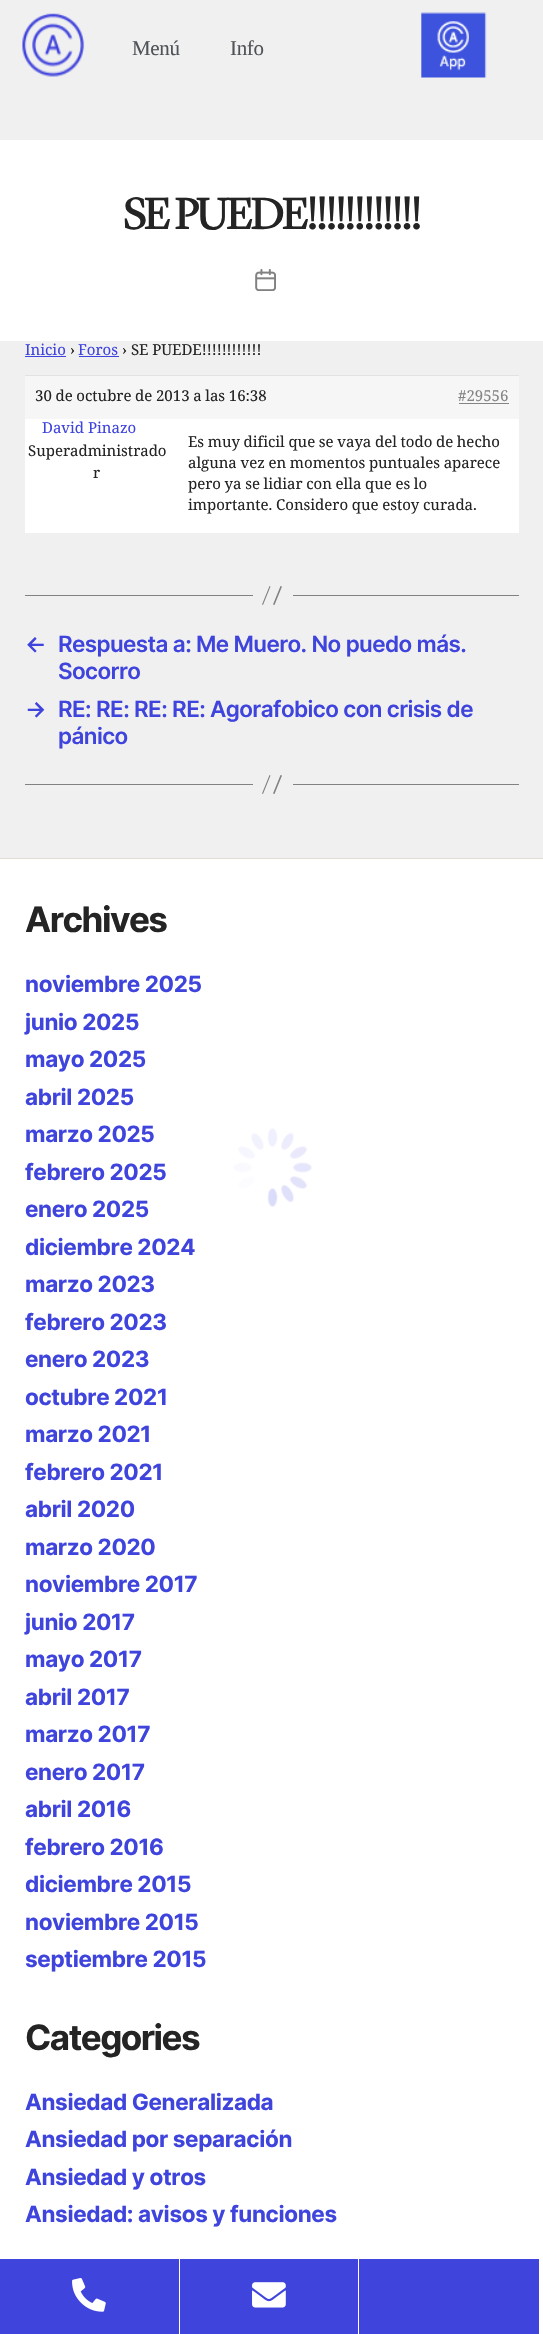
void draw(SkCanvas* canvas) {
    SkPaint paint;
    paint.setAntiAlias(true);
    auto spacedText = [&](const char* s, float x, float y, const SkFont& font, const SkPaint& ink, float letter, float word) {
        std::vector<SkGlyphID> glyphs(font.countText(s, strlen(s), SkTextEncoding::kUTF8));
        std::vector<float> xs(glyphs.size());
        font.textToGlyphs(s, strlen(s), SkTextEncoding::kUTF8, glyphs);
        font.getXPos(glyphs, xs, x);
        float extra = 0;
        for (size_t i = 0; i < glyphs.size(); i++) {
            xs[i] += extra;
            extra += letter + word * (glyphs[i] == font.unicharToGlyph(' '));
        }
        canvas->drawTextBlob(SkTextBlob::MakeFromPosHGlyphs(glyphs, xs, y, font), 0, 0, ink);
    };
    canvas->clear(0xFFF0F0F0);
    canvas->drawImageRect(SkImages::DeferredFromEncodedData(SkData::MakeFromFileName("img1.png")), SkRect::MakeXYWH(22, 13, 63, 64), SkSamplingOptions());
    SkFont font1(fontMgr->matchFamilyStyle("Liberation Serif", SkFontStyle::Normal()), 21);
    font1.setSubpixel(true);
    paint.setColor(0xFF505358);
    spacedText("Menú", 132, 55, font1, paint, -0.35f, 0);
    spacedText("Info", 230, 55, font1, paint, -0.35f, 0);
    canvas->drawImageRect(SkImages::DeferredFromEncodedData(SkData::MakeFromFileName("img2.png")), SkRect::MakeXYWH(421, 12, 66, 66), SkSamplingOptions());
    paint.setColor(0xFFFFFFFF);
    canvas->drawRect(SkRect::MakeXYWH(0, 859, 543, 1475), paint);
    paint.setColor(0xFF3F44DD);
    canvas->drawRect(SkRect::MakeXYWH(0, 2259, 179, 75), paint);
    canvas->drawImageRect(SkImages::DeferredFromEncodedData(SkData::MakeFromFileName("img3.png")), SkRect::MakeXYWH(72, 2278, 34, 34), SkSamplingOptions());
    canvas->drawRect(SkRect::MakeXYWH(180, 2259, 178, 75), paint);
    canvas->drawImageRect(SkImages::DeferredFromEncodedData(SkData::MakeFromFileName("img4.png")), SkRect::MakeXYWH(252, 2282, 34, 26), SkSamplingOptions());
    canvas->drawRect(SkRect::MakeXYWH(359, 2259, 180, 75), paint);
    paint.setColor(0xFFFFFFFF);
    canvas->drawRect(SkRect::MakeXYWH(0, 140, 543, 201), paint);
    SkFont font2(fontMgr->matchFamilyStyle("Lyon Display", SkFontStyle::Bold()), 45);
    font2.setSubpixel(true);
    paint.setColor(0xFF242424);
    spacedText("SE PUEDE!!!!!!!!!!!!", 123, 229, font2, paint, -1.9f, 0);
    canvas->drawImageRect(SkImages::DeferredFromEncodedData(SkData::MakeFromFileName("img5.png")), SkRect::MakeXYWH(255, 269, 21, 22), SkSamplingOptions());
    SkFont font3(fontMgr->matchFamilyStyle("Noto Serif", SkFontStyle::Normal()), 15);
    font3.setSubpixel(true);
    paint.setColor(0xFF3F44DD);
    canvas->drawString("Inicio", 25, 355, font3, paint);
    canvas->drawRect(SkRect::MakeXYWH(25, 356, 41, 1), paint);
    paint.setColor(0xFF242424);
    canvas->drawString("›", 70, 355, font3, paint);
    paint.setColor(0xFF3F44DD);
    canvas->drawString("Foros", 78, 355, font3, paint);
    canvas->drawRect(SkRect::MakeXYWH(79, 356, 40, 1), paint);
    paint.setColor(0xFF242424);
    canvas->drawString("› SE PUEDE!!!!!!!!!!!!", 122, 355, font3, paint);
    paint.setColor(0xFFF6F6F6);
    canvas->drawRect(SkRect::MakeXYWH(25, 376, 494, 43), paint);
    paint.setColor(0xFFE2E2E2);
    canvas->drawRect(SkRect::MakeXYWH(25, 375, 494, 1), paint);
    paint.setColor(0xFF242424);
    spacedText("30 de octubre de 2013 a las 16:38", 35, 401, font3, paint, 0, -0.25f);
    paint.setColor(0xFF848484);
    canvas->drawString("#29556", 458, 401, font3, paint);
    canvas->drawRect(SkRect::MakeXYWH(459, 403, 50, 1), paint);
    paint.setColor(0xFFFFFFFF);
    canvas->drawRect(SkRect::MakeXYWH(25, 419, 494, 114), paint);
    paint.setColor(0xFF3F44DD);
    canvas->drawString("David Pinazo", 42, 433, font3, paint);
    paint.setColor(0xFF242424);
    canvas->drawString("Superadministrado", 28, 456, font3, paint);
    canvas->drawString("r", 93, 478, font3, paint);
    spacedText("Es muy dificil que se vaya del todo de hecho", 188, 447, font3, paint, 0, -0.25f);
    spacedText("alguna vez en momentos puntuales aparece", 188, 468, font3, paint, 0, -0.25f);
    spacedText("pero ya se lidiar con ella que es lo", 188, 489, font3, paint, 0, -0.25f);
    spacedText("importante. Considero que estoy curada.", 188, 510, font3, paint, 0, -0.25f);
    paint.setColor(0xFF818181);
    canvas->drawRect(SkRect::MakeXYWH(293, 595, 226, 1), paint);
    canvas->drawRect(SkRect::MakeXYWH(25, 595, 228, 1), paint);
    canvas->drawPath(SkPathBuilder().moveTo(269.5f, 586).lineTo(270.5f, 586.5f).lineTo(263, 605).lineTo(262, 604.5f).close().moveTo(280.5f, 586).lineTo(282, 586.5f).lineTo(274.5f, 605).lineTo(273, 604.5f).close().detach(), paint);
    SkFont font4(fontMgr->matchFamilyStyle("Inter", SkFontStyle(600, SkFontStyle::kNormal_Width, SkFontStyle::kUpright_Slant)), 22.5f);
    font4.setSubpixel(true);
    paint.setColor(0xFF3F44DD);
    spacedText("←", 25, 652, font4, paint, -0.6f, 0);
    spacedText("Respuesta a: Me Muero. No puedo más.", 58, 652, font4, paint, -0.6f, 0);
    spacedText("Socorro", 58, 679, font4, paint, -0.6f, 0);
    spacedText("→", 25, 717, font4, paint, -0.6f, 0);
    spacedText("RE: RE: RE: RE: Agorafobico con crisis de", 58, 717, font4, paint, -0.6f, 0);
    spacedText("pánico", 58, 744, font4, paint, -0.6f, 0);
    paint.setColor(0xFF818181);
    canvas->drawRect(SkRect::MakeXYWH(293, 784, 226, 1), paint);
    canvas->drawRect(SkRect::MakeXYWH(25, 784, 228, 1), paint);
    canvas->drawPath(SkPathBuilder().moveTo(269.5f, 775).lineTo(270.5f, 775.5f).lineTo(263, 794).lineTo(262, 793.5f).close().moveTo(280.5f, 775).lineTo(282, 775.5f).lineTo(274.5f, 794).lineTo(273, 793.5f).close().detach(), paint);
    paint.setColor(0xFFE1DDD1);
    canvas->drawRect(SkRect::MakeXYWH(0, 858, 543, 1), paint);
    SkFont font5(fontMgr->matchFamilyStyle("Inter", SkFontStyle::Bold()), 35);
    font5.setSubpixel(true);
    paint.setColor(0xFF242424);
    spacedText("Archives", 25, 932, font5, paint, -1.5f, 0);
    SkFont font6(fontMgr->matchFamilyStyle("Inter", SkFontStyle::Bold()), 22.5f);
    font6.setSubpixel(true);
    paint.setColor(0xFF3F44DD);
    spacedText("noviembre 2025", 25, 992, font6, paint, -0.35f, 0);
    spacedText("junio 2025", 25, 1030, font6, paint, -0.35f, 0);
    spacedText("mayo 2025", 25, 1067, font6, paint, -0.35f, 0);
    spacedText("abril 2025", 25, 1105, font6, paint, -0.35f, 0);
    spacedText("marzo 2025", 25, 1142, font6, paint, -0.35f, 0);
    spacedText("febrero 2025", 25, 1180, font6, paint, -0.35f, 0);
    spacedText("enero 2025", 25, 1217, font6, paint, -0.35f, 0);
    spacedText("diciembre 2024", 25, 1255, font6, paint, -0.35f, 0);
    spacedText("marzo 2023", 25, 1292, font6, paint, -0.35f, 0);
    spacedText("febrero 2023", 25, 1330, font6, paint, -0.35f, 0);
    spacedText("enero 2023", 25, 1367, font6, paint, -0.35f, 0);
    spacedText("octubre 2021", 25, 1405, font6, paint, -0.35f, 0);
    spacedText("marzo 2021", 25, 1442, font6, paint, -0.35f, 0);
    spacedText("febrero 2021", 25, 1480, font6, paint, -0.35f, 0);
    spacedText("abril 2020", 25, 1517, font6, paint, -0.35f, 0);
    spacedText("marzo 2020", 25, 1555, font6, paint, -0.35f, 0);
    spacedText("noviembre 2017", 25, 1592, font6, paint, -0.35f, 0);
    spacedText("junio 2017", 25, 1630, font6, paint, -0.35f, 0);
    spacedText("mayo 2017", 25, 1667, font6, paint, -0.35f, 0);
    spacedText("abril 2017", 25, 1705, font6, paint, -0.35f, 0);
    spacedText("marzo 2017", 25, 1742, font6, paint, -0.35f, 0);
    spacedText("enero 2017", 25, 1780, font6, paint, -0.35f, 0);
    spacedText("abril 2016", 25, 1817, font6, paint, -0.35f, 0);
    spacedText("febrero 2016", 25, 1855, font6, paint, -0.35f, 0);
    spacedText("diciembre 2015", 25, 1892, font6, paint, -0.35f, 0);
    spacedText("noviembre 2015", 25, 1930, font6, paint, -0.35f, 0);
    spacedText("septiembre 2015", 25, 1967, font6, paint, -0.35f, 0);
    paint.setColor(0xFF242424);
    spacedText("Categories", 25, 2050, font5, paint, -1.5f, 0);
    paint.setColor(0xFF3F44DD);
    spacedText("Ansiedad Generalizada", 25, 2110, font6, paint, -0.35f, 0);
    spacedText("Ansiedad por separación", 25, 2147, font6, paint, -0.35f, 0);
    spacedText("Ansiedad y otros", 25, 2185, font6, paint, -0.35f, 0);
    spacedText("Ansiedad: avisos y funciones", 25, 2222, font6, paint, -0.35f, 0);
    canvas->drawImageRect(SkImages::DeferredFromEncodedData(SkData::MakeFromFileName("img6.png")), SkRect::MakeXYWH(233, 1128, 79, 79), SkSamplingOptions());
}
